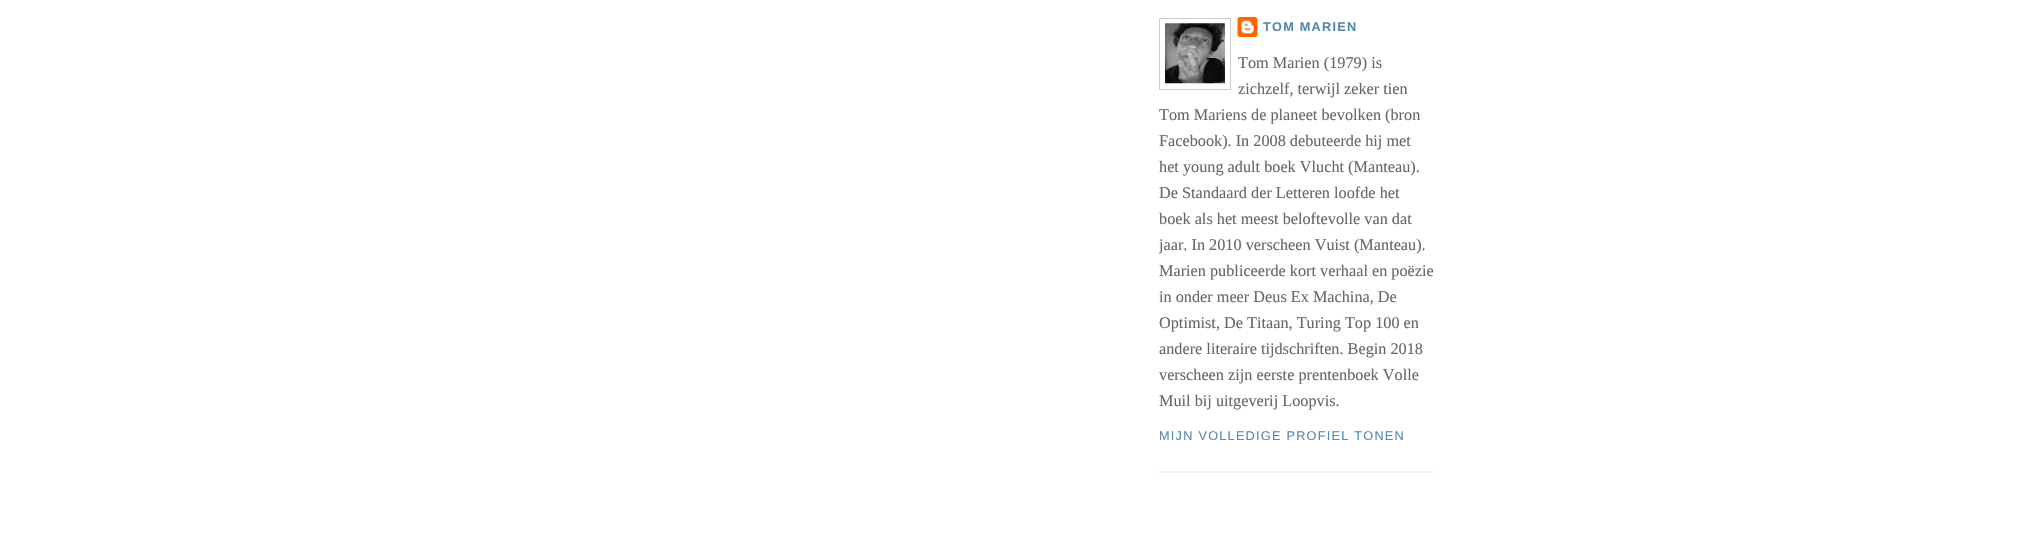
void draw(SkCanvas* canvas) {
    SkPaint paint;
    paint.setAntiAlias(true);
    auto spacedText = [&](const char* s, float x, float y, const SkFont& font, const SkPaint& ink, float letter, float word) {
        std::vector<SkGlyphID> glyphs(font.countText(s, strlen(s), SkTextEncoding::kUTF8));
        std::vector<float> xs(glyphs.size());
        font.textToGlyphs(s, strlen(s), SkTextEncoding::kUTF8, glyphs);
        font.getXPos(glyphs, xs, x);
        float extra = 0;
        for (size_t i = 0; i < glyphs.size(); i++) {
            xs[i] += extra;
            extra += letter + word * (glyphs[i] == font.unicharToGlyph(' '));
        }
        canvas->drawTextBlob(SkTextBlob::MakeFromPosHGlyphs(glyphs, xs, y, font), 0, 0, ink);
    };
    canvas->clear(0xFFFFFFFF);
    paint.setStyle(SkPaint::kStroke_Style);
    paint.setStrokeWidth(1.2f);
    paint.setColor(0xFFCCCCCC);
    paint.setPathEffect(SkDashPathEffect::Make({{1.25f, 1.25f}}, 0));
    canvas->drawPath(SkPathBuilder().moveTo(1159, 472).lineTo(1434, 472).detach(), paint);
    paint.setPathEffect(nullptr);
    paint.setStrokeWidth(1);
    canvas->drawRect(SkRect::MakeXYWH(1159.5f, 18.5f, 71, 71), paint);
    canvas->drawImageRect(SkImages::DeferredFromEncodedData(SkData::MakeFromFileName("img1.png")), SkRect::MakeXYWH(1165, 23, 60, 61), SkSamplingOptions());
    canvas->drawImageRect(SkImages::DeferredFromEncodedData(SkData::MakeFromFileName("img2.png")), SkRect::MakeXYWH(1237, 17, 21, 20), SkSamplingOptions());
    SkFont font1(fontMgr->matchFamilyStyle("Liberation Sans", SkFontStyle::Bold()), 12.7f);
    font1.setSubpixel(true);
    paint.setStyle(SkPaint::kFill_Style);
    paint.setColor(0xFF5588AA);
    spacedText("TOM MARIEN", 1263, 31, font1, paint, 1.25f, 0);
    SkFont font2(fontMgr->matchFamilyStyle("Liberation Serif", SkFontStyle::Normal()), 16.25f);
    font2.setSubpixel(true);
    paint.setColor(0xFF666666);
    canvas->drawString("Tom Marien (1979) is", 1238, 68, font2, paint);
    canvas->drawString("zichzelf, terwijl zeker tien", 1238, 94, font2, paint);
    canvas->drawString("Tom Mariens de planeet bevolken (bron", 1159, 120, font2, paint);
    canvas->drawString("Facebook). In 2008 debuteerde hij met", 1159, 146, font2, paint);
    canvas->drawString("het young adult boek Vlucht (Manteau).", 1159, 172, font2, paint);
    canvas->drawString("De Standaard der Letteren loofde het", 1159, 198, font2, paint);
    canvas->drawString("boek als het meest beloftevolle van dat", 1159, 224, font2, paint);
    canvas->save();
    canvas->clipRect(SkRect::MakeXYWH(1159, 0, 275, 496));
    canvas->drawString("jaar. In 2010 verscheen Vuist (Manteau).", 1159, 250, font2, paint);
    canvas->restore();
    canvas->drawString("Marien publiceerde kort verhaal en poëzie", 1159, 276, font2, paint);
    canvas->drawString("in onder meer Deus Ex Machina, De", 1159, 302, font2, paint);
    canvas->drawString("Optimist, De Titaan, Turing Top 100 en", 1159, 328, font2, paint);
    canvas->drawString("andere literaire tijdschriften. Begin 2018", 1159, 354, font2, paint);
    canvas->drawString("verscheen zijn eerste prentenboek Volle", 1159, 380, font2, paint);
    canvas->drawString("Muil bij uitgeverij Loopvis.", 1159, 406, font2, paint);
    SkFont font3(fontMgr->matchFamilyStyle("Liberation Sans", SkFontStyle::Normal()), 12.7f);
    font3.setSubpixel(true);
    paint.setColor(0xFF5588AA);
    spacedText("MIJN VOLLEDIGE PROFIEL TONEN", 1159, 440, font3, paint, 1.25f, 0);
}
